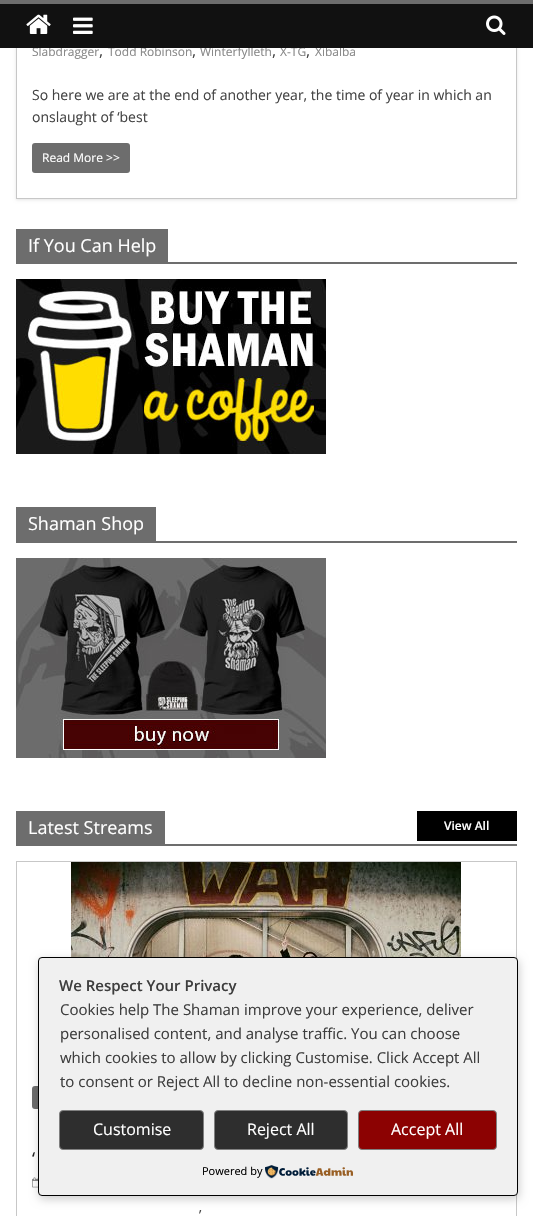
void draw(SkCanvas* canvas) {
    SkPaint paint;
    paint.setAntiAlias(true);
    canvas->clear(0xFFFFFFFF);
    canvas->save();
    canvas->clipPath(SkPathBuilder(SkPathFillType::kEvenOdd).moveTo(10, 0).lineTo(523, 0).lineTo(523, 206).lineTo(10, 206).close().moveTo(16, -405).lineTo(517, -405).lineTo(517, 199).lineTo(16, 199).close().detach(), true);
    paint.setColor(0x1A000000);
    paint.setMaskFilter(SkMaskFilter::MakeBlur(kNormal_SkBlurStyle, 1.5f));
    canvas->drawRect(SkRect::MakeXYWH(16, -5, 501, 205), paint);
    paint.setMaskFilter(nullptr);
    canvas->restore();
    paint.setStyle(SkPaint::kStroke_Style);
    paint.setStrokeWidth(1);
    paint.setColor(0xFFC7C7C7);
    canvas->drawRect(SkRect::MakeXYWH(16.5f, -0.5f, 500, 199), paint);
    SkFont font1(fontMgr->matchFamilyStyle("Open Sans", SkFontStyle::Normal()), 12);
    font1.setSubpixel(true);
    paint.setStyle(SkPaint::kFill_Style);
    paint.setColor(0xFF888888);
    canvas->drawString("Slabdragger", 32, 56, font1, paint);
    canvas->drawString("Todd Robinson", 108, 56, font1, paint);
    canvas->drawString("Winterfylleth", 200, 56, font1, paint);
    canvas->drawString("X-TG", 280, 56, font1, paint);
    canvas->drawString("Xibalba", 315, 56, font1, paint);
    paint.setColor(0xFF111111);
    canvas->drawRect(SkRect::MakeXYWH(0, 4, 533, 44), paint);
    paint.setColor(0xFF6D6D6D);
    canvas->drawRect(SkRect::MakeXYWH(0, 0, 533, 4), paint);
    canvas->drawImageRect(SkImages::DeferredFromEncodedData(SkData::MakeFromFileName("img1.png")), SkRect::MakeXYWH(26, 14, 25, 20), SkSamplingOptions());
    canvas->drawImageRect(SkImages::DeferredFromEncodedData(SkData::MakeFromFileName("img2.png")), SkRect::MakeXYWH(73, 17, 20, 17), SkSamplingOptions());
    canvas->drawImageRect(SkImages::DeferredFromEncodedData(SkData::MakeFromFileName("img3.png")), SkRect::MakeXYWH(486, 15, 20, 20), SkSamplingOptions());
    SkFont font2(fontMgr->matchFamilyStyle("Open Sans", SkFontStyle::Normal()), 16);
    font2.setSubpixel(true);
    paint.setColor(0xFF444444);
    canvas->drawString(",", 99, 56, font2, paint);
    canvas->drawString(",", 192, 56, font2, paint);
    canvas->drawString(",", 272, 56, font2, paint);
    canvas->drawString(",", 306, 56, font2, paint);
    SkFont font3(fontMgr->matchFamilyStyle("Open Sans", SkFontStyle::Normal()), 14);
    font3.setSubpixel(true);
    canvas->drawString("So here we are at the end of another year, the time of year in which an", 32, 100, font3, paint);
    canvas->drawString("onslaught of ‘best", 32, 122, font3, paint);
    paint.setColor(0xFF6D6D6D);
    canvas->drawRoundRect(SkRect::MakeXYWH(32, 143, 98, 30), 3, 3, paint);
    paint.setColor(0xFFFFFFFF);
    canvas->drawString("Read More >>", 42, 162, font1, paint);
    paint.setColor(0xFF6D6D6D);
    canvas->drawRect(SkRect::MakeXYWH(16, 262, 501, 2), paint);
    canvas->drawRect(SkRect::MakeXYWH(16, 229, 152, 33), paint);
    SkFont font4(fontMgr->matchFamilyStyle("Open Sans", SkFontStyle::Normal()), 18);
    font4.setSubpixel(true);
    paint.setColor(0xFFFFFFFF);
    canvas->drawString("If You Can Help", 28, 252, font4, paint);
    canvas->drawImageRect(SkImages::DeferredFromEncodedData(SkData::MakeFromFileName("img4.png")), SkRect::MakeXYWH(16, 279, 310, 175), SkSamplingOptions());
    paint.setColor(0xFF6D6D6D);
    canvas->drawRect(SkRect::MakeXYWH(16, 541, 501, 2), paint);
    canvas->drawRect(SkRect::MakeXYWH(16, 507, 140, 34), paint);
    paint.setColor(0xFFFFFFFF);
    canvas->drawString("Shaman Shop", 28, 530, font4, paint);
    canvas->drawImageRect(SkImages::DeferredFromEncodedData(SkData::MakeFromFileName("img5.png")), SkRect::MakeXYWH(16, 558, 310, 200), SkSamplingOptions());
    paint.setColor(0xFF6D6D6D);
    canvas->drawRect(SkRect::MakeXYWH(16, 844, 501, 2), paint);
    canvas->drawRect(SkRect::MakeXYWH(16, 811, 149, 33), paint);
    paint.setColor(0xFFFFFFFF);
    canvas->drawString("Latest Streams", 28, 834, font4, paint);
    paint.setColor(0xFF000000);
    canvas->drawRect(SkRect::MakeXYWH(417, 811, 100, 30), paint);
    SkFont font5(fontMgr->matchFamilyStyle("Open Sans", SkFontStyle(600, SkFontStyle::kNormal_Width, SkFontStyle::kUpright_Slant)), 12);
    font5.setSubpixel(true);
    paint.setColor(0xFFFFFFFF);
    canvas->drawString("View All", 444, 830, font5, paint);
    paint.setStyle(SkPaint::kStroke_Style);
    paint.setColor(0xFFC7C7C7);
    canvas->drawRect(SkRect::MakeXYWH(16.5f, 861.5f, 500, 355), paint);
    canvas->drawImageRect(SkImages::DeferredFromEncodedData(SkData::MakeFromFileName("img6.png")), SkRect::MakeXYWH(71, 862, 390, 95), SkSamplingOptions());
    paint.setStyle(SkPaint::kFill_Style);
    paint.setColor(0xFF6D6D6D);
    canvas->drawRoundRect(SkRect::MakeXYWH(32, 1086, 70, 23), 3, 3, paint);
    paint.setColor(0xFF232323);
    canvas->drawString("‘", 32, 1165, font4, paint);
    canvas->drawImageRect(SkImages::DeferredFromEncodedData(SkData::MakeFromFileName("img7.png")), SkRect::MakeXYWH(32, 1177, 6, 11), SkSamplingOptions());
    paint.setColor(0xFF444444);
    canvas->drawString("’", 199, 1220, font3, paint);
    paint.setColor(0x33000000);
    paint.setMaskFilter(SkMaskFilter::MakeBlur(kNormal_SkBlurStyle, 5));
    canvas->drawRoundRect(SkRect::MakeXYWH(39, 960, 480, 239), 4, 4, paint);
    paint.setMaskFilter(nullptr);
    paint.setColor(0xFFF0F0F0);
    canvas->drawRoundRect(SkRect::MakeXYWH(38.5f, 957.5f, 479, 238), 3.5f, 3.5f, paint);
    paint.setStyle(SkPaint::kStroke_Style);
    paint.setColor(0xFF000000);
    canvas->drawRoundRect(SkRect::MakeXYWH(38.5f, 957.5f, 479, 238), 3.5f, 3.5f, paint);
    SkFont font6(fontMgr->matchFamilyStyle("Open Sans", SkFontStyle(600, SkFontStyle::kNormal_Width, SkFontStyle::kUpright_Slant)), 15);
    font6.setSubpixel(true);
    paint.setStyle(SkPaint::kFill_Style);
    paint.setColor(0xFF3E3E3E);
    canvas->drawString("We Respect Your Privacy", 59, 991, font6, paint);
    SkFont font7(fontMgr->matchFamilyStyle("Open Sans", SkFontStyle::Normal()), 15);
    font7.setSubpixel(true);
    canvas->drawString("Cookies help The Shaman improve your experience, deliver", 60, 1015, font7, paint);
    canvas->drawString("personalised content, and analyse traffic. You can choose", 60, 1039, font7, paint);
    canvas->drawString("which cookies to allow by clicking Customise. Click Accept All", 60, 1063, font7, paint);
    canvas->drawString("to consent or Reject All to decline non-essential cookies.", 60, 1087, font7, paint);
    paint.setColor(0xFF2E2E2E);
    canvas->drawRoundRect(SkRect::MakeXYWH(59.5f, 1110.5f, 144, 39), 3.5f, 3.5f, paint);
    paint.setStyle(SkPaint::kStroke_Style);
    paint.setColor(0xFF808080);
    canvas->drawRoundRect(SkRect::MakeXYWH(59.5f, 1110.5f, 144, 39), 3.5f, 3.5f, paint);
    paint.setStyle(SkPaint::kFill_Style);
    paint.setColor(0xFFFFFFFF);
    canvas->drawString("Customise", 93, 1135, font2, paint);
    paint.setColor(0xFF2E2E2E);
    canvas->drawRoundRect(SkRect::MakeXYWH(214.5f, 1110.5f, 133, 39), 3.5f, 3.5f, paint);
    paint.setStyle(SkPaint::kStroke_Style);
    paint.setColor(0xFF808080);
    canvas->drawRoundRect(SkRect::MakeXYWH(214.5f, 1110.5f, 133, 39), 3.5f, 3.5f, paint);
    paint.setStyle(SkPaint::kFill_Style);
    paint.setColor(0xFFFFFFFF);
    canvas->drawString("Reject All", 247, 1135, font2, paint);
    paint.setColor(0xFF8C0202);
    canvas->drawRoundRect(SkRect::MakeXYWH(358.5f, 1110.5f, 138, 39), 3.5f, 3.5f, paint);
    paint.setStyle(SkPaint::kStroke_Style);
    paint.setColor(0xFF808080);
    canvas->drawRoundRect(SkRect::MakeXYWH(358.5f, 1110.5f, 138, 39), 3.5f, 3.5f, paint);
    paint.setStyle(SkPaint::kFill_Style);
    paint.setColor(0xFFFFFFFF);
    canvas->drawString("Accept All", 391, 1135, font2, paint);
    SkFont font8(fontMgr->matchFamilyStyle("Open Sans", SkFontStyle::Normal()), 11);
    font8.setSubpixel(true);
    paint.setColor(0xFF000000);
    canvas->drawString("Powered by", 202, 1175, font8, paint);
    canvas->drawImageRect(SkImages::DeferredFromEncodedData(SkData::MakeFromFileName("img8.png")), SkRect::MakeXYWH(265, 1165, 88, 14), SkSamplingOptions());
}
